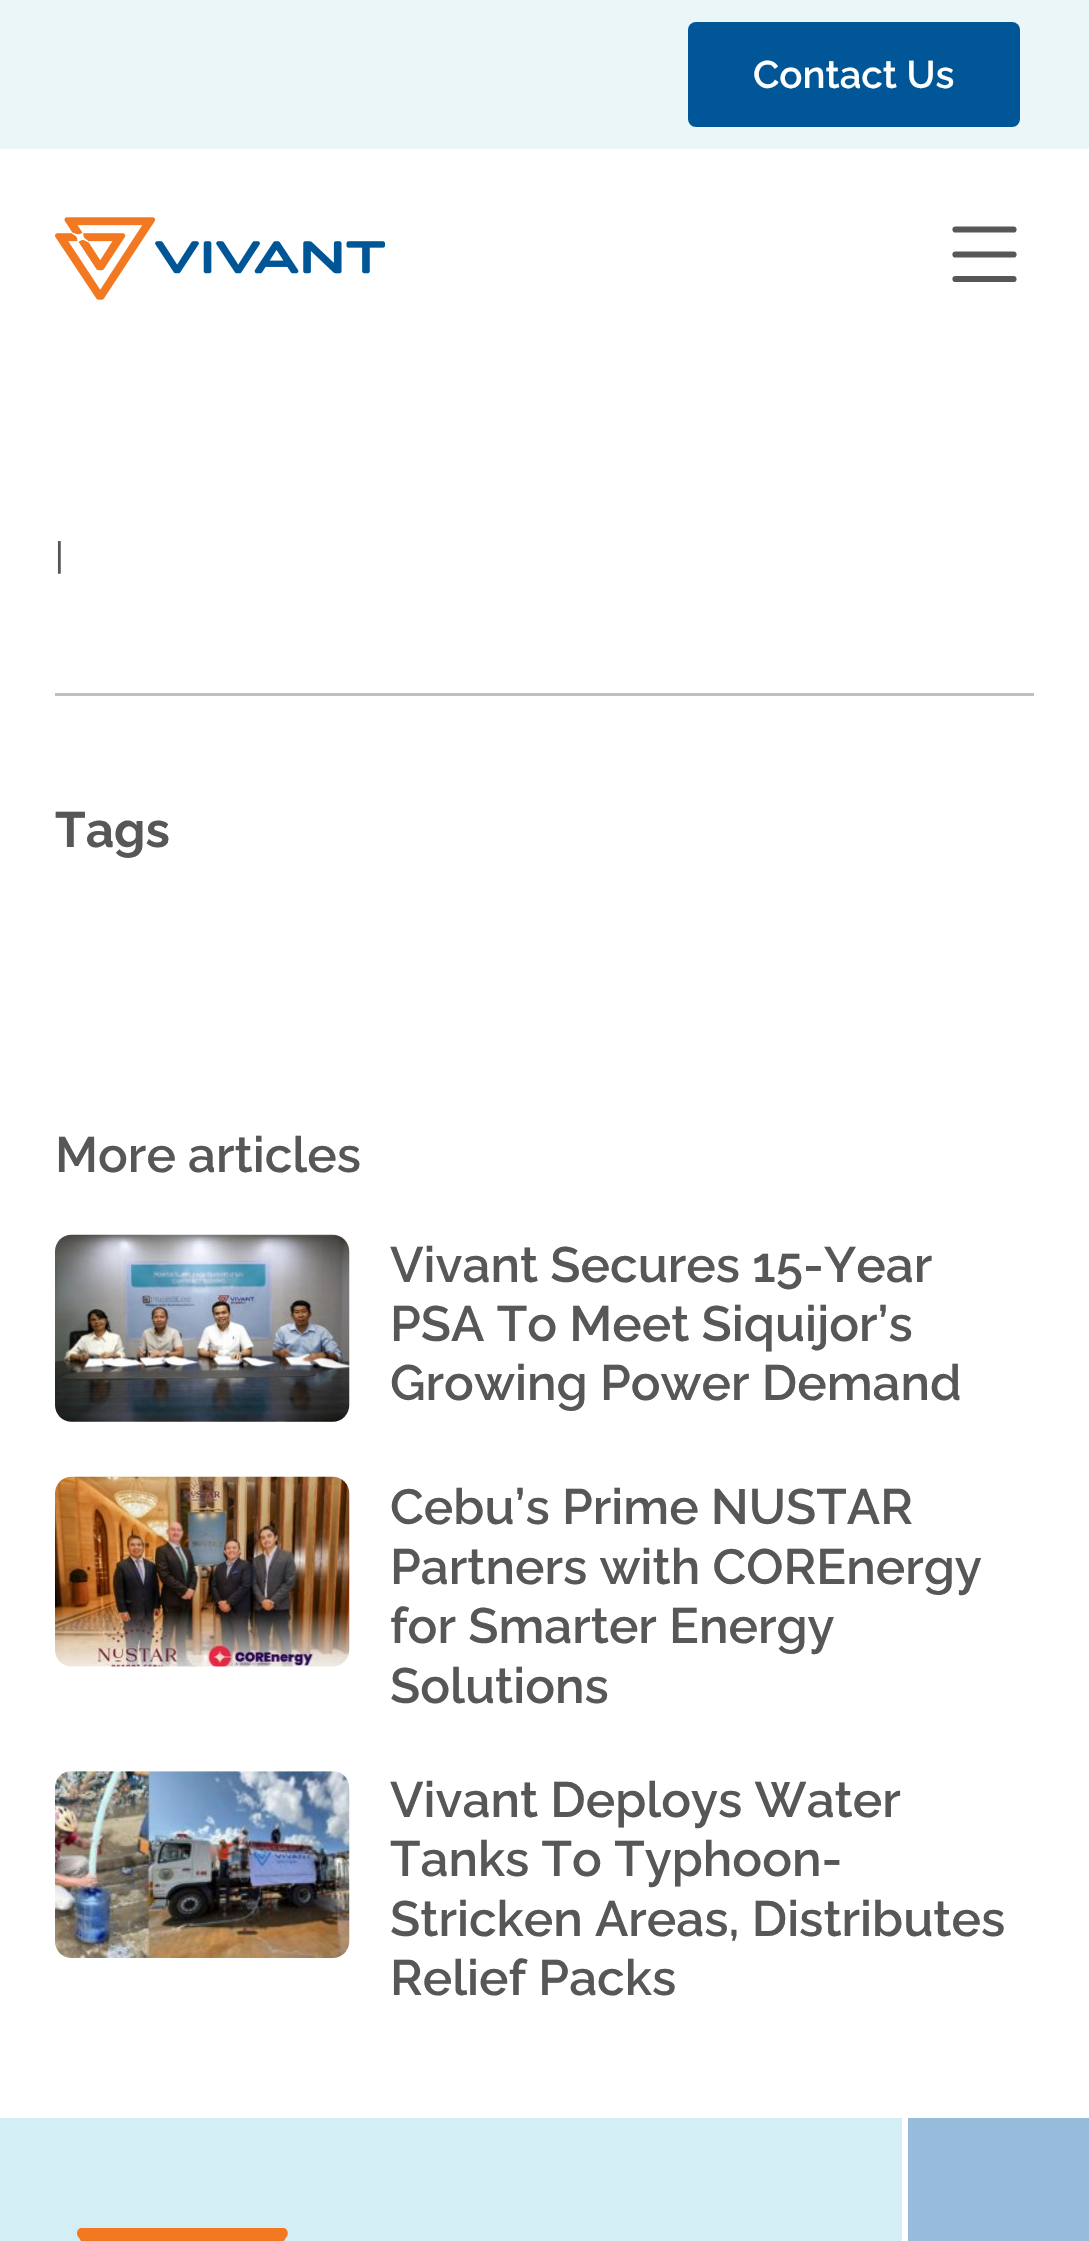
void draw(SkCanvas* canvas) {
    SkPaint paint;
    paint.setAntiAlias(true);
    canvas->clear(0xFFFFFFFF);
    paint.setColor(0xFFEAF6F8);
    canvas->drawRect(SkRect::MakeXYWH(0, 0, 1089, 149), paint);
    paint.setColor(0xFF005697);
    canvas->drawRoundRect(SkRect::MakeXYWH(688, 22, 332, 105), 8, 8, paint);
    SkFont font1(fontMgr->matchFamilyStyle("Raleway", SkFontStyle(600, SkFontStyle::kNormal_Width, SkFontStyle::kUpright_Slant)), 38.5f);
    font1.setSubpixel(true);
    paint.setColor(0xFFFFFFFF);
    canvas->drawString("Contact Us", 753, 88, font1, paint);
    canvas->drawImageRect(SkImages::DeferredFromEncodedData(SkData::MakeFromFileName("img1.png")), SkRect::MakeXYWH(55, 217, 330, 83), SkSamplingOptions());
    paint.setStyle(SkPaint::kStroke_Style);
    paint.setStrokeWidth(6.2f);
    paint.setStrokeCap(SkPaint::kRound_Cap);
    paint.setColor(0xFF575757);
    canvas->drawPath(SkPathBuilder().moveTo(955.5f, 229.5f).lineTo(1013.5f, 229.5f).detach(), paint);
    canvas->drawPath(SkPathBuilder().moveTo(955.5f, 254.5f).lineTo(1013.5f, 254.5f).detach(), paint);
    canvas->drawPath(SkPathBuilder().moveTo(955.5f, 279).lineTo(1013.5f, 279).detach(), paint);
    SkFont font2(fontMgr->matchFamilyStyle("Raleway", SkFontStyle(500, SkFontStyle::kNormal_Width, SkFontStyle::kUpright_Slant)), 36);
    font2.setSubpixel(true);
    paint.setStyle(SkPaint::kFill_Style);
    canvas->drawString("|", 55, 569, font2, paint);
    paint.setColor(0xFFBFBFBF);
    canvas->drawRect(SkRect::MakeXYWH(55, 693, 979, 3), paint);
    SkFont font3(fontMgr->matchFamilyStyle("Raleway", SkFontStyle::Bold()), 49.5f);
    font3.setSubpixel(true);
    paint.setColor(0xFF575757);
    canvas->drawString("Tags", 55, 847, font3, paint);
    SkFont font4(fontMgr->matchFamilyStyle("Raleway", SkFontStyle(600, SkFontStyle::kNormal_Width, SkFontStyle::kUpright_Slant)), 49.5f);
    font4.setSubpixel(true);
    canvas->drawString("More articles", 55, 1172, font4, paint);
    canvas->drawImageRect(SkImages::DeferredFromEncodedData(SkData::MakeFromFileName("img2.png")), SkRect::MakeXYWH(55, 1234, 295, 188), SkSamplingOptions());
    canvas->drawString("Vivant Secures 15-Year", 390, 1282, font4, paint);
    canvas->drawString("PSA To Meet Siquijor’s", 390, 1341, font4, paint);
    canvas->drawString("Growing Power Demand", 390, 1400, font4, paint);
    canvas->drawImageRect(SkImages::DeferredFromEncodedData(SkData::MakeFromFileName("img3.png")), SkRect::MakeXYWH(55, 1476, 295, 191), SkSamplingOptions());
    canvas->drawString("Cebu’s Prime NUSTAR", 390, 1524, font4, paint);
    canvas->drawString("Partners with COREnergy", 390, 1584, font4, paint);
    canvas->drawString("for Smarter Energy", 390, 1643, font4, paint);
    canvas->drawString("Solutions", 390, 1703, font4, paint);
    canvas->drawImageRect(SkImages::DeferredFromEncodedData(SkData::MakeFromFileName("img4.png")), SkRect::MakeXYWH(55, 1771, 295, 187), SkSamplingOptions());
    canvas->drawString("Vivant Deploys Water", 390, 1817, font4, paint);
    canvas->drawString("Tanks To Typhoon-", 390, 1876, font4, paint);
    canvas->drawString("Stricken Areas, Distributes", 390, 1936, font4, paint);
    canvas->drawString("Relief Packs", 390, 1995, font4, paint);
    paint.setColor(0xFFD4EEF5);
    canvas->drawRect(SkRect::MakeXYWH(0, 2118, 902, 123), paint);
    canvas->drawImageRect(SkImages::DeferredFromEncodedData(SkData::MakeFromFileName("img5.png")), SkRect::MakeXYWH(77, 2228, 211, 13), SkSamplingOptions());
    paint.setColor(0xFF97BCDB);
    canvas->drawRect(SkRect::MakeXYWH(908, 2118, 181, 123), paint);
}
